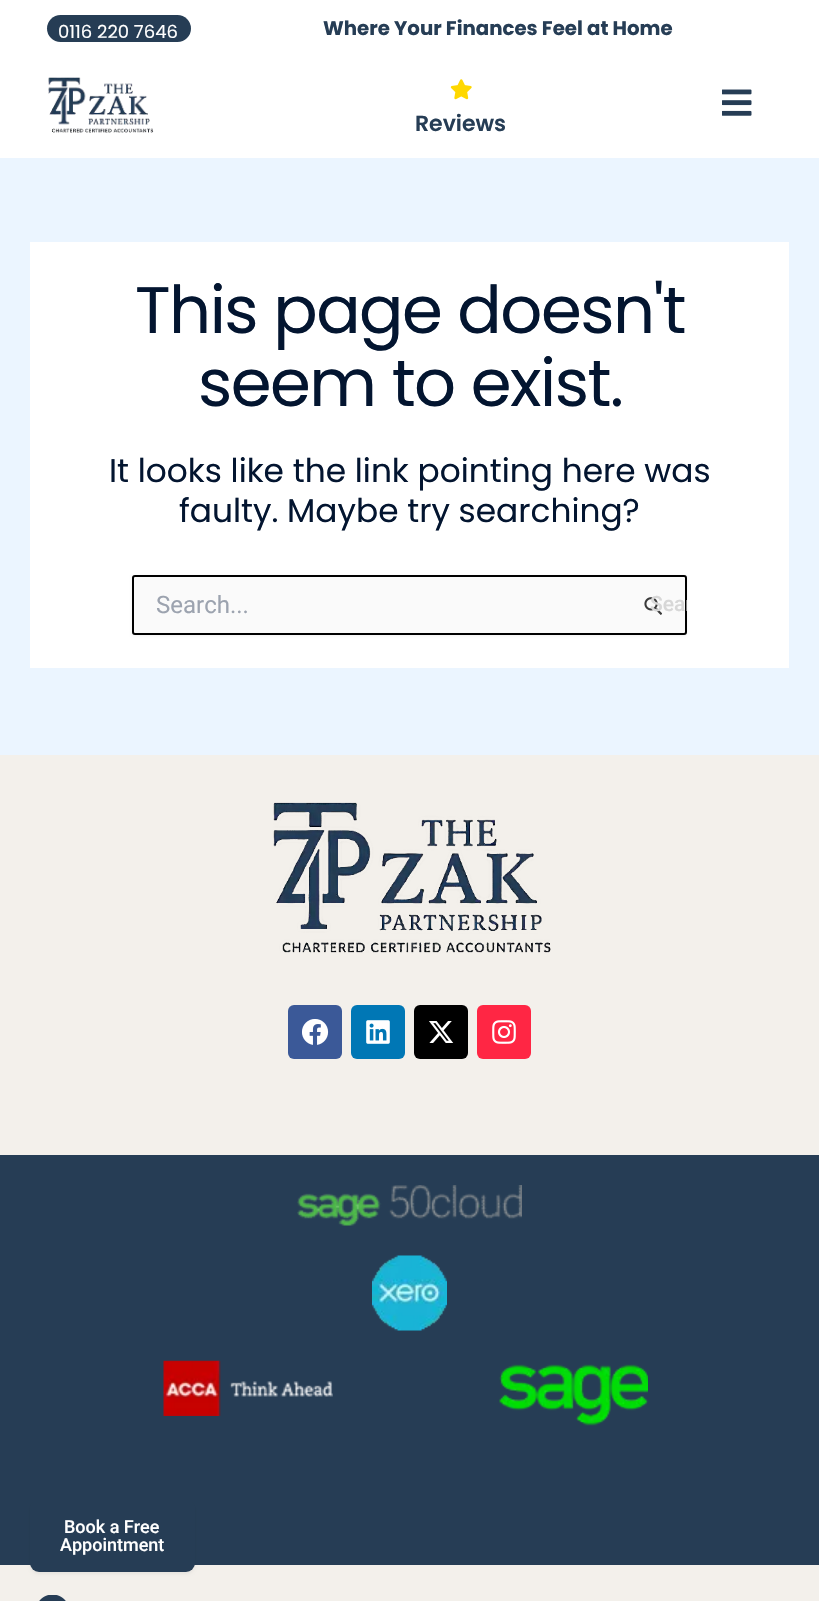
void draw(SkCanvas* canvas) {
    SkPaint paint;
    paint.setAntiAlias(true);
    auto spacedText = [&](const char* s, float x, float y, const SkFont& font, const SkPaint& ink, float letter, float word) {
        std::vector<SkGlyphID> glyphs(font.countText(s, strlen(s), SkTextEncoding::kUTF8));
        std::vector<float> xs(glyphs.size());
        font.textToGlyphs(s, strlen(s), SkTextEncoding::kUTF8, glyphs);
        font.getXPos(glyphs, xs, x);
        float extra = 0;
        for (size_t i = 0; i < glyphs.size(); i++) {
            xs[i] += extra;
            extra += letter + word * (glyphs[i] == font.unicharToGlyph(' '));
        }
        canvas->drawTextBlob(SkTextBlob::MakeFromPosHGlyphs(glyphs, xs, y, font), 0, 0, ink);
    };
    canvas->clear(0xFFEBF5FF);
    paint.setColor(0xFFFFFFFF);
    canvas->drawRect(SkRect::MakeXYWH(0, 0, 819, 158), paint);
    paint.setColor(0xFF263D55);
    canvas->drawRoundRect(SkRect::MakeXYWH(47, 15, 144, 27), 13.5f, 13.5f, paint);
    SkFont font1(fontMgr->matchFamilyStyle("Poppins", SkFontStyle::Normal()), 18);
    font1.setSubpixel(true);
    paint.setColor(0xFFFFFFFF);
    canvas->drawString("0116 220 7646", 58, 38, font1, paint);
    SkFont font2(fontMgr->matchFamilyStyle("Poppins", SkFontStyle::Bold()), 19.75f);
    font2.setSubpixel(true);
    paint.setColor(0xFF263D55);
    canvas->drawString("Where Your Finances Feel at Home", 323, 35, font2, paint);
    canvas->drawImageRect(SkImages::DeferredFromEncodedData(SkData::MakeFromFileName("img1.png")), SkRect::MakeXYWH(48, 77, 106, 56), SkSamplingOptions());
    canvas->drawImageRect(SkImages::DeferredFromEncodedData(SkData::MakeFromFileName("img2.png")), SkRect::MakeXYWH(722, 89, 30, 27), SkSamplingOptions());
    canvas->drawImageRect(SkImages::DeferredFromEncodedData(SkData::MakeFromFileName("img3.png")), SkRect::MakeXYWH(450, 79, 22, 21), SkSamplingOptions());
    SkFont font3(fontMgr->matchFamilyStyle("Poppins", SkFontStyle(600, SkFontStyle::kNormal_Width, SkFontStyle::kUpright_Slant)), 22);
    font3.setSubpixel(true);
    canvas->drawString("Reviews", 415, 131, font3, paint);
    paint.setColor(0xFFFFFFFF);
    canvas->drawRect(SkRect::MakeXYWH(30, 242, 759, 426), paint);
    SkFont font4(fontMgr->matchFamilyStyle("Poppins", SkFontStyle::Normal()), 65.75f);
    font4.setSubpixel(true);
    paint.setColor(0xFF031530);
    spacedText("This page doesn't", 135, 333, font4, paint, -1.5f, 0);
    spacedText("seem to exist.", 198, 406, font4, paint, -1.5f, 0);
    SkFont font5(fontMgr->matchFamilyStyle("Poppins", SkFontStyle::Normal()), 32.8f);
    font5.setSubpixel(true);
    canvas->drawString("It looks like the link pointing here was", 109, 482, font5, paint);
    canvas->drawString("faulty. Maybe try searching?", 179, 522, font5, paint);
    paint.setColor(0x0D000000);
    paint.setMaskFilter(SkMaskFilter::MakeBlur(kNormal_SkBlurStyle, 1.5f));
    canvas->drawRoundRect(SkRect::MakeXYWH(132, 576, 555, 60), 3, 3, paint);
    paint.setMaskFilter(nullptr);
    paint.setColor(0xFFFAFAFA);
    canvas->drawRoundRect(SkRect::MakeXYWH(133, 576, 553, 58), 2, 2, paint);
    paint.setStyle(SkPaint::kStroke_Style);
    paint.setStrokeWidth(2);
    paint.setColor(0xFF000000);
    canvas->drawRoundRect(SkRect::MakeXYWH(133, 576, 553, 58), 2, 2, paint);
    SkFont font6(fontMgr->matchFamilyStyle("Roboto", SkFontStyle::Normal()), 24);
    font6.setSubpixel(true);
    paint.setStyle(SkPaint::kFill_Style);
    paint.setColor(0xFF9CA3AF);
    canvas->drawString("Search...", 156, 613, font6, paint);
    canvas->drawImageRect(SkImages::DeferredFromEncodedData(SkData::MakeFromFileName("img4.png")), SkRect::MakeXYWH(644, 597, 18, 18), SkSamplingOptions());
    canvas->save();
    canvas->clipPath(SkPathBuilder().moveTo(623, 575).lineTo(684, 575).cubicTo(685.5f, 575, 687, 576.5f, 687, 578).lineTo(687, 632).cubicTo(687, 633.5f, 685.5f, 635, 684, 635).lineTo(623, 635).cubicTo(621.5f, 635, 620, 633.5f, 620, 632).lineTo(620, 578).cubicTo(620, 576.5f, 621.5f, 575, 623, 575).close().detach(), true);
    SkFont font7(fontMgr->matchFamilyStyle("Roboto", SkFontStyle(500, SkFontStyle::kNormal_Width, SkFontStyle::kUpright_Slant)), 21);
    font7.setSubpixel(true);
    paint.setColor(0xFFD7D7D7);
    canvas->drawString("Sear", 650, 611, font7, paint);
    canvas->restore();
    paint.setColor(0xFFF3F0EB);
    canvas->drawRect(SkRect::MakeXYWH(0, 755, 819, 400), paint);
    canvas->drawImageRect(SkImages::DeferredFromEncodedData(SkData::MakeFromFileName("img5.png")), SkRect::MakeXYWH(273, 802, 278, 151), SkSamplingOptions());
    paint.setColor(0xFF3B5998);
    canvas->drawRoundRect(SkRect::MakeXYWH(288, 1005, 54, 54), 6, 6, paint);
    canvas->drawImageRect(SkImages::DeferredFromEncodedData(SkData::MakeFromFileName("img6.png")), SkRect::MakeXYWH(302, 1019, 27, 26), SkSamplingOptions());
    paint.setColor(0xFF0077B5);
    canvas->drawRoundRect(SkRect::MakeXYWH(351, 1005, 54, 54), 6, 6, paint);
    canvas->drawImageRect(SkImages::DeferredFromEncodedData(SkData::MakeFromFileName("img7.png")), SkRect::MakeXYWH(366, 1020, 24, 24), SkSamplingOptions());
    paint.setColor(0xFF000000);
    canvas->drawRoundRect(SkRect::MakeXYWH(414, 1005, 54, 54), 6, 6, paint);
    canvas->drawImageRect(SkImages::DeferredFromEncodedData(SkData::MakeFromFileName("img8.png")), SkRect::MakeXYWH(429, 1021, 25, 22), SkSamplingOptions());
    paint.setColor(0xFFFF2644);
    canvas->drawRoundRect(SkRect::MakeXYWH(477, 1005, 54, 54), 6, 6, paint);
    canvas->drawImageRect(SkImages::DeferredFromEncodedData(SkData::MakeFromFileName("img9.png")), SkRect::MakeXYWH(492, 1020, 24, 24), SkSamplingOptions());
    paint.setColor(0xFF263D55);
    canvas->drawRect(SkRect::MakeXYWH(0, 1155, 819, 410), paint);
    canvas->drawImageRect(SkImages::DeferredFromEncodedData(SkData::MakeFromFileName("img10.png")), SkRect::MakeXYWH(297, 1185, 225, 41), SkSamplingOptions());
    canvas->drawImageRect(SkImages::DeferredFromEncodedData(SkData::MakeFromFileName("img11.png")), SkRect::MakeXYWH(372, 1255, 75, 76), SkSamplingOptions());
    canvas->drawImageRect(SkImages::DeferredFromEncodedData(SkData::MakeFromFileName("img12.png")), SkRect::MakeXYWH(163, 1360, 170, 56), SkSamplingOptions());
    canvas->drawImageRect(SkImages::DeferredFromEncodedData(SkData::MakeFromFileName("img13.png")), SkRect::MakeXYWH(499, 1364, 149, 62), SkSamplingOptions());
    paint.setColor(0xFFF3F0EB);
    canvas->drawRect(SkRect::MakeXYWH(0, 1565, 819, 36), paint);
    canvas->drawImageRect(SkImages::DeferredFromEncodedData(SkData::MakeFromFileName("img14.png")), SkRect::MakeXYWH(39, 1595, 27, 6), SkSamplingOptions());
    paint.setColor(0x0D000000);
    paint.setMaskFilter(SkMaskFilter::MakeBlur(kNormal_SkBlurStyle, 1.5f));
    canvas->drawRoundRect(SkRect::MakeXYWH(30, 1502, 165, 72), 9, 9, paint);
    paint.setMaskFilter(nullptr);
    paint.setColor(0xFF263D55);
    canvas->drawRoundRect(SkRect::MakeXYWH(30, 1500, 165, 72), 9, 9, paint);
    SkFont font8(fontMgr->matchFamilyStyle("Roboto", SkFontStyle(500, SkFontStyle::kNormal_Width, SkFontStyle::kUpright_Slant)), 18);
    font8.setSubpixel(true);
    paint.setColor(0xFFFFFFFF);
    canvas->drawString("Book a Free", 64, 1533, font8, paint);
    canvas->drawString("Appointment", 60, 1551, font8, paint);
}
